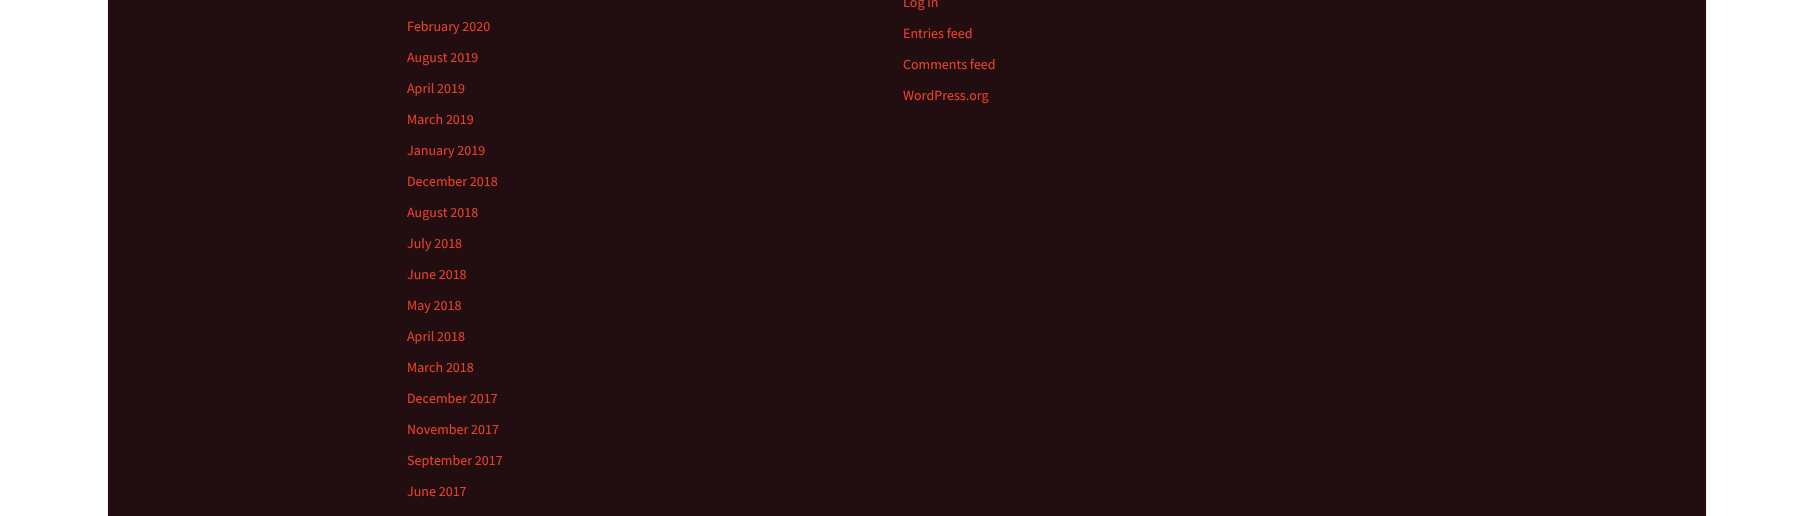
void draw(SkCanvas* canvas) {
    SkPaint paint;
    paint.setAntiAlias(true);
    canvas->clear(0xFFFFFFFF);
    paint.setColor(0xFFF2F2F2);
    canvas->drawRect(SkRect::MakeXYWH(1706, 0, 1, 516), paint);
    canvas->drawRect(SkRect::MakeXYWH(107, 0, 1, 516), paint);
    paint.setColor(0xFF220E10);
    canvas->drawRect(SkRect::MakeXYWH(108, 0, 1598, 516), paint);
    SkFont font1(fontMgr->matchFamilyStyle("Source Sans Pro", SkFontStyle::Normal()), 14);
    font1.setSubpixel(true);
    paint.setColor(0xFFE6402A);
    canvas->drawString("February 2020", 407, 31, font1, paint);
    canvas->drawString("August 2019", 407, 62, font1, paint);
    canvas->drawString("April 2019", 407, 93, font1, paint);
    canvas->drawString("March 2019", 407, 124, font1, paint);
    canvas->drawString("January 2019", 407, 155, font1, paint);
    canvas->drawString("December 2018", 407, 186, font1, paint);
    canvas->drawString("August 2018", 407, 217, font1, paint);
    canvas->drawString("July 2018", 407, 248, font1, paint);
    canvas->drawString("June 2018", 407, 279, font1, paint);
    canvas->drawString("May 2018", 407, 310, font1, paint);
    canvas->drawString("April 2018", 407, 341, font1, paint);
    canvas->drawString("March 2018", 407, 372, font1, paint);
    canvas->drawString("December 2017", 407, 403, font1, paint);
    canvas->drawString("November 2017", 407, 434, font1, paint);
    canvas->drawString("September 2017", 407, 465, font1, paint);
    canvas->drawString("June 2017", 407, 496, font1, paint);
    canvas->drawString("Log in", 903, 7, font1, paint);
    canvas->drawString("Entries feed", 903, 38, font1, paint);
    canvas->drawString("Comments feed", 903, 69, font1, paint);
    canvas->drawString("WordPress.org", 903, 100, font1, paint);
}
